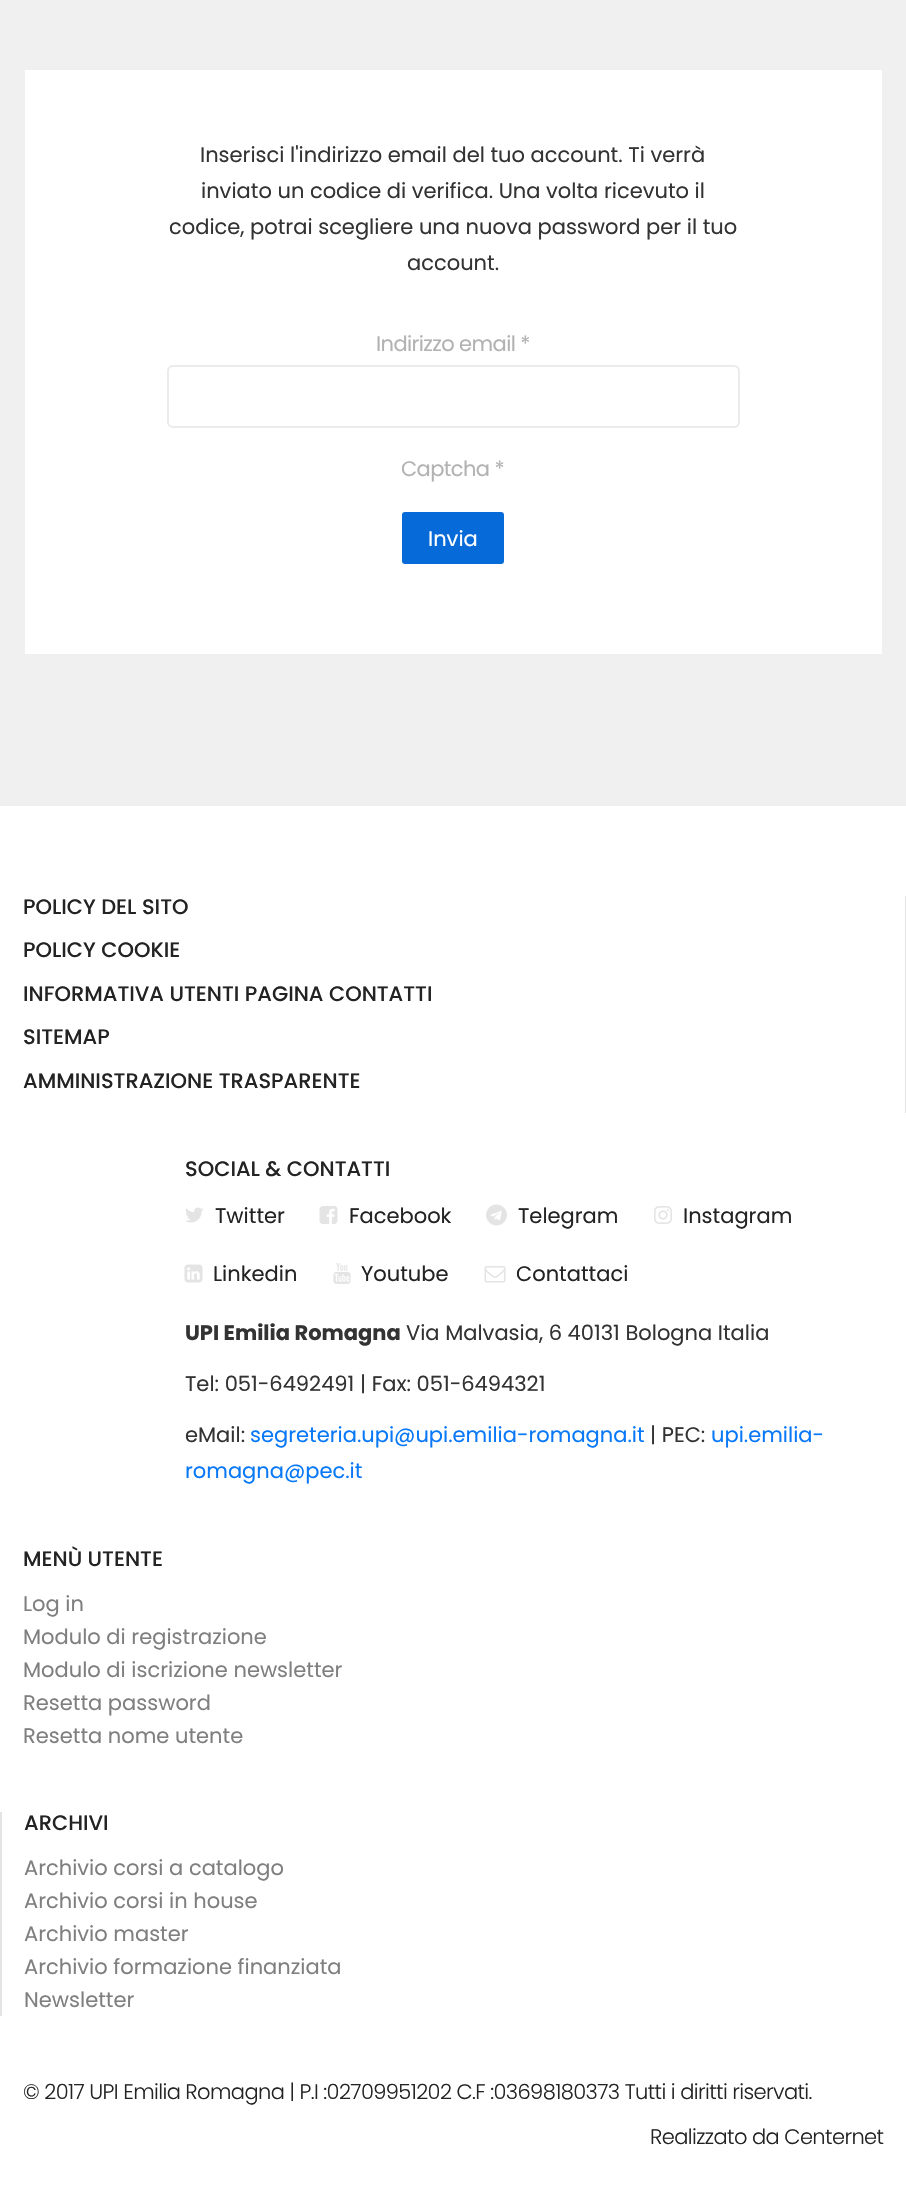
void draw(SkCanvas* canvas) {
    SkPaint paint;
    paint.setAntiAlias(true);
    auto spacedText = [&](const char* s, float x, float y, const SkFont& font, const SkPaint& ink, float letter, float word) {
        std::vector<SkGlyphID> glyphs(font.countText(s, strlen(s), SkTextEncoding::kUTF8));
        std::vector<float> xs(glyphs.size());
        font.textToGlyphs(s, strlen(s), SkTextEncoding::kUTF8, glyphs);
        font.getXPos(glyphs, xs, x);
        float extra = 0;
        for (size_t i = 0; i < glyphs.size(); i++) {
            xs[i] += extra;
            extra += letter + word * (glyphs[i] == font.unicharToGlyph(' '));
        }
        canvas->drawTextBlob(SkTextBlob::MakeFromPosHGlyphs(glyphs, xs, y, font), 0, 0, ink);
    };
    canvas->clear(0xFFF0F0F0);
    paint.setColor(0xFFFFFFFF);
    canvas->drawRect(SkRect::MakeXYWH(25, 70, 857, 584), paint);
    SkFont font1(fontMgr->matchFamilyStyle("Poppins", SkFontStyle::Normal()), 21);
    font1.setSubpixel(true);
    paint.setColor(0xFF333333);
    canvas->drawString("Inserisci l'indirizzo email del tuo account. Ti verrà", 200, 162, font1, paint);
    canvas->drawString("inviato un codice di verifica. Una volta ricevuto il", 201, 198, font1, paint);
    canvas->drawString("codice, potrai scegliere una nuova password per il tuo", 169, 234, font1, paint);
    canvas->drawString("account.", 407, 270, font1, paint);
    paint.setColor(0xFFB2B2B2);
    spacedText("Indirizzo email *", 376, 351, font1, paint, -0.6f, 0);
    paint.setStyle(SkPaint::kStroke_Style);
    paint.setStrokeWidth(2);
    paint.setColor(0xFFEBEBEB);
    canvas->drawRoundRect(SkRect::MakeXYWH(168, 366, 571, 61), 5, 5, paint);
    paint.setStyle(SkPaint::kFill_Style);
    paint.setColor(0xFFB2B2B2);
    spacedText("Captcha *", 401, 476, font1, paint, -0.6f, 0);
    paint.setColor(0xFF076AD9);
    canvas->drawRoundRect(SkRect::MakeXYWH(402, 512, 102, 52), 3, 3, paint);
    paint.setColor(0xFFFFFFFF);
    canvas->drawString("Invia", 428, 546, font1, paint);
    canvas->drawRect(SkRect::MakeXYWH(0, 806, 906, 1390), paint);
    paint.setColor(0xFFE4E4E4);
    canvas->drawRect(SkRect::MakeXYWH(905, 896, 1, 217), paint);
    SkFont font2(fontMgr->matchFamilyStyle("Poppins", SkFontStyle(500, SkFontStyle::kNormal_Width, SkFontStyle::kUpright_Slant)), 21);
    font2.setSubpixel(true);
    paint.setColor(0xFF232323);
    canvas->drawString("POLICY DEL SITO", 23, 914, font2, paint);
    canvas->drawString("POLICY COOKIE", 23, 957, font2, paint);
    canvas->drawString("INFORMATIVA UTENTI PAGINA CONTATTI", 23, 1001, font2, paint);
    canvas->drawString("SITEMAP", 23, 1044, font2, paint);
    canvas->drawString("AMMINISTRAZIONE TRASPARENTE", 23, 1088, font2, paint);
    canvas->drawString("SOCIAL & CONTATTI", 185, 1176, font2, paint);
    canvas->drawImageRect(SkImages::DeferredFromEncodedData(SkData::MakeFromFileName("img1.png")), SkRect::MakeXYWH(185, 1207, 18, 16), SkSamplingOptions());
    canvas->drawString("Twitter", 215, 1223, font1, paint);
    canvas->drawImageRect(SkImages::DeferredFromEncodedData(SkData::MakeFromFileName("img2.png")), SkRect::MakeXYWH(319, 1206, 19, 18), SkSamplingOptions());
    canvas->drawString("Facebook", 349, 1223, font1, paint);
    canvas->drawImageRect(SkImages::DeferredFromEncodedData(SkData::MakeFromFileName("img3.png")), SkRect::MakeXYWH(486, 1204, 21, 22), SkSamplingOptions());
    canvas->drawString("Telegram", 518, 1223, font1, paint);
    canvas->drawImageRect(SkImages::DeferredFromEncodedData(SkData::MakeFromFileName("img4.png")), SkRect::MakeXYWH(654, 1206, 18, 18), SkSamplingOptions());
    canvas->drawString("Instagram", 683, 1223, font1, paint);
    canvas->drawImageRect(SkImages::DeferredFromEncodedData(SkData::MakeFromFileName("img5.png")), SkRect::MakeXYWH(184, 1264, 19, 19), SkSamplingOptions());
    canvas->drawString("Linkedin", 213, 1281, font1, paint);
    canvas->drawImageRect(SkImages::DeferredFromEncodedData(SkData::MakeFromFileName("img6.png")), SkRect::MakeXYWH(333, 1263, 18, 21), SkSamplingOptions());
    canvas->drawString("Youtube", 361, 1281, font1, paint);
    canvas->drawImageRect(SkImages::DeferredFromEncodedData(SkData::MakeFromFileName("img7.png")), SkRect::MakeXYWH(484, 1266, 22, 17), SkSamplingOptions());
    canvas->drawString("Contattaci", 516, 1281, font1, paint);
    SkFont font3(fontMgr->matchFamilyStyle("Poppins", SkFontStyle::Bold()), 21);
    font3.setSubpixel(true);
    paint.setColor(0xFF333333);
    canvas->drawString("UPI Emilia Romagna", 185, 1340, font3, paint);
    canvas->drawString("Via Malvasia, 6 40131 Bologna Italia", 406, 1340, font1, paint);
    canvas->drawString("Tel: 051-6492491 | Fax: 051-6494321", 185, 1391, font1, paint);
    canvas->drawString("eMail:", 185, 1442, font1, paint);
    paint.setColor(0xFF0878F7);
    canvas->drawString("segreteria.upi@upi.emilia-romagna.it", 250, 1442, font1, paint);
    paint.setColor(0xFF333333);
    canvas->drawString("| PEC:", 650, 1442, font1, paint);
    paint.setColor(0xFF0878F7);
    canvas->drawString("upi.emilia-", 711, 1442, font1, paint);
    canvas->drawString("romagna@pec.it", 185, 1478, font1, paint);
    paint.setColor(0xFF232323);
    canvas->drawString("MENÙ UTENTE", 23, 1566, font2, paint);
    paint.setColor(0xFF7F7F7F);
    canvas->drawString("Log in", 23, 1611, font1, paint);
    canvas->drawString("Modulo di registrazione", 23, 1644, font1, paint);
    canvas->drawString("Modulo di iscrizione newsletter", 23, 1677, font1, paint);
    canvas->drawString("Resetta password", 23, 1710, font1, paint);
    canvas->drawString("Resetta nome utente", 23, 1743, font1, paint);
    paint.setColor(0xFFE4E4E4);
    canvas->drawRect(SkRect::MakeXYWH(0, 1812, 2, 204), paint);
    paint.setColor(0xFF232323);
    canvas->drawString("ARCHIVI", 24, 1830, font2, paint);
    paint.setColor(0xFF7F7F7F);
    canvas->drawString("Archivio corsi a catalogo", 24, 1875, font1, paint);
    canvas->drawString("Archivio corsi in house", 24, 1908, font1, paint);
    canvas->drawString("Archivio master", 24, 1941, font1, paint);
    canvas->drawString("Archivio formazione finanziata", 24, 1974, font1, paint);
    canvas->drawString("Newsletter", 24, 2007, font1, paint);
    SkFont font4(fontMgr->matchFamilyStyle("Poppins", SkFontStyle(300, SkFontStyle::kNormal_Width, SkFontStyle::kUpright_Slant)), 21);
    font4.setSubpixel(true);
    paint.setColor(0xFF232323);
    spacedText("© 2017 UPI Emilia Romagna | P.I :02709951202 C.F :03698180373 Tutti i diritti riservati.", 23, 2099, font4, paint, -0.6f, 0);
    spacedText("Realizzato da Centernet", 650, 2144, font4, paint, -0.6f, 0);
}
